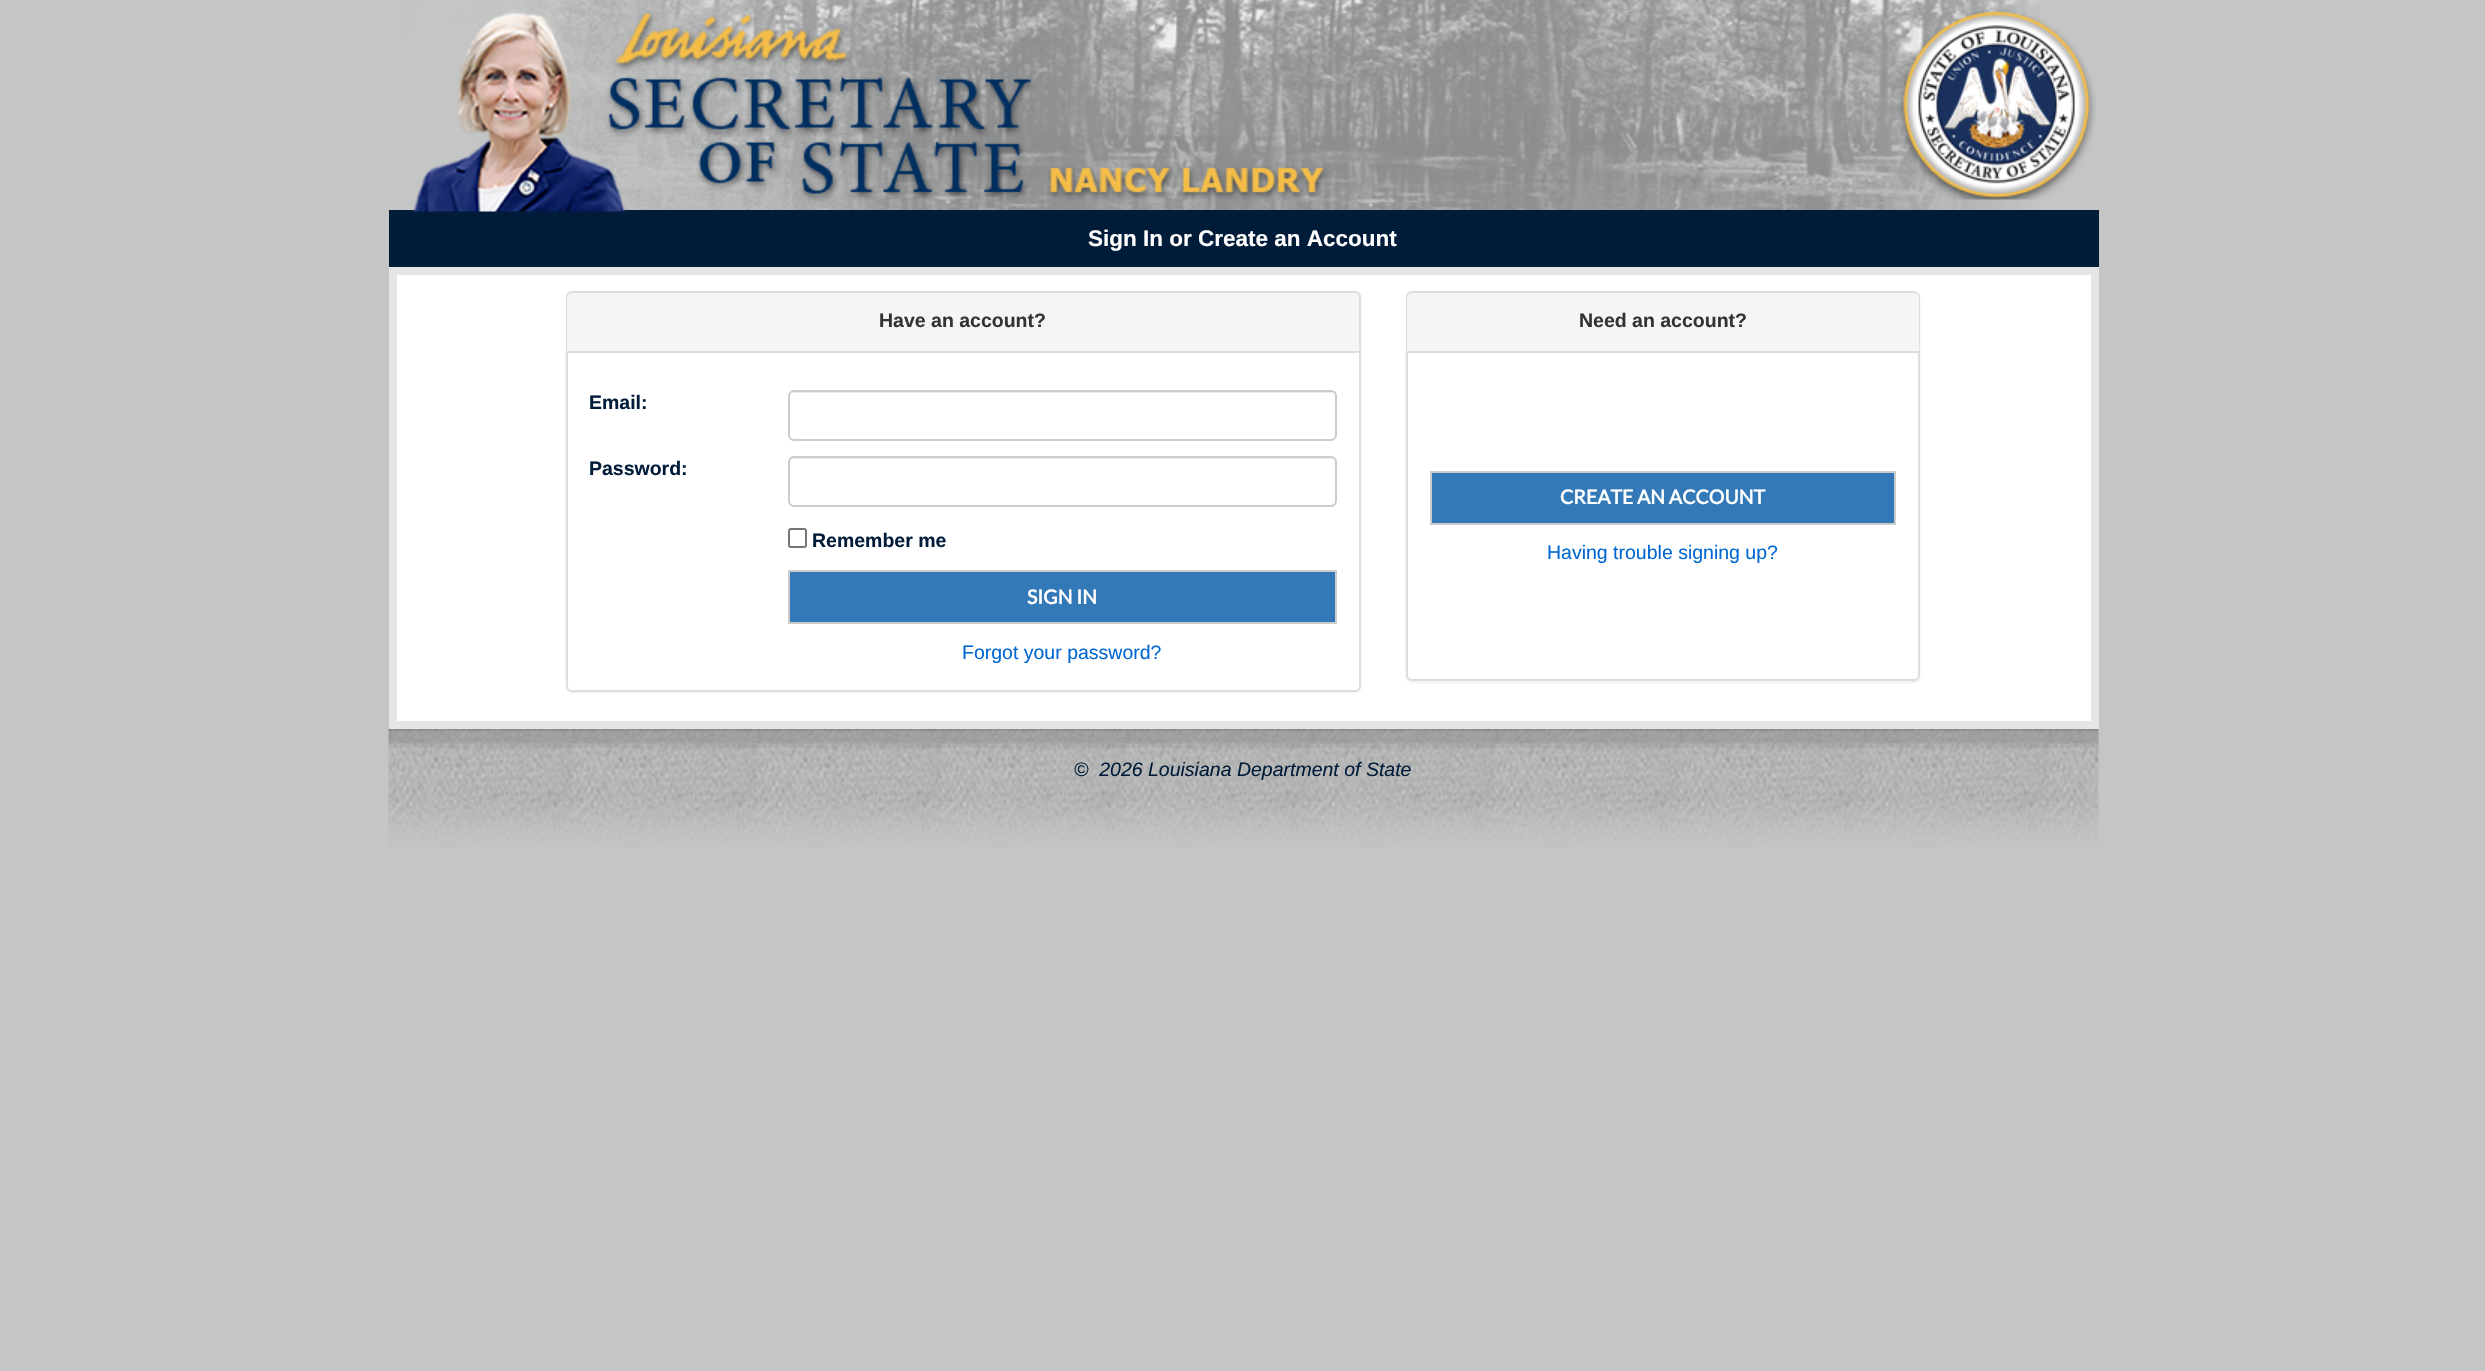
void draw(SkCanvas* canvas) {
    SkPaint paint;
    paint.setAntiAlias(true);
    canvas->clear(0xFFC5C5C6);
    canvas->drawImageRect(SkImages::DeferredFromEncodedData(SkData::MakeFromFileName("img1.png")), SkRect::MakeXYWH(399, 0, 1642, 210), SkSamplingOptions());
    paint.setColor(0xFF001C39);
    canvas->drawRect(SkRect::MakeXYWH(389, 210, 1710, 57), paint);
    canvas->drawImageRect(SkImages::DeferredFromEncodedData(SkData::MakeFromFileName("img2.png")), SkRect::MakeXYWH(412, 9, 916, 203), SkSamplingOptions());
    canvas->drawImageRect(SkImages::DeferredFromEncodedData(SkData::MakeFromFileName("img3.png")), SkRect::MakeXYWH(1897, 9, 199, 191), SkSamplingOptions());
    SkFont font1(fontMgr->matchFamilyStyle("Liberation Sans", SkFontStyle::Bold()), 22.5f);
    font1.setSubpixel(true);
    paint.setColor(0xFFFFFFFF);
    canvas->drawString("Sign In or Create an Account", 1088, 246, font1, paint);
    canvas->drawRect(SkRect::MakeXYWH(393, 271, 1702, 454), paint);
    paint.setStyle(SkPaint::kStroke_Style);
    paint.setStrokeWidth(8);
    paint.setColor(0xFFE5E5E5);
    canvas->drawRect(SkRect::MakeXYWH(393, 271, 1702, 454), paint);
    paint.setStyle(SkPaint::kFill_Style);
    paint.setColor(0x0D000000);
    paint.setMaskFilter(SkMaskFilter::MakeBlur(kNormal_SkBlurStyle, 1));
    canvas->drawRoundRect(SkRect::MakeXYWH(566, 293, 795, 400), 6, 6, paint);
    paint.setMaskFilter(nullptr);
    paint.setColor(0xFFFFFFFF);
    canvas->drawRoundRect(SkRect::MakeXYWH(567, 292, 793, 399), 5, 5, paint);
    paint.setStyle(SkPaint::kStroke_Style);
    paint.setStrokeWidth(2);
    paint.setColor(0xFFDDDDDD);
    canvas->drawRoundRect(SkRect::MakeXYWH(567, 292, 793, 399), 5, 5, paint);
    paint.setStyle(SkPaint::kFill_Style);
    paint.setColor(0xFFF5F5F5);
    canvas->drawPath(SkPathBuilder().moveTo(572, 293).lineTo(1354, 293).cubicTo(1357, 293, 1359, 295, 1359, 298).lineTo(1359, 353).lineTo(567, 353).lineTo(567, 298).cubicTo(567, 295, 569, 293, 572, 293).close().detach(), paint);
    paint.setColor(0xFFDDDDDD);
    canvas->drawRect(SkRect::MakeXYWH(567, 351, 792, 2), paint);
    SkFont font2(fontMgr->matchFamilyStyle("Liberation Sans", SkFontStyle::Bold()), 19.5f);
    font2.setSubpixel(true);
    paint.setColor(0xFF333333);
    canvas->drawString("Have an account?", 879, 327, font2, paint);
    paint.setColor(0xFF001C39);
    canvas->drawString("Email:", 589, 409, font2, paint);
    paint.setColor(0xFFECECEC);
    canvas->drawPath(SkPathBuilder().moveTo(794, 393).lineTo(1330, 393).cubicTo(1333, 393, 1335, 395, 1335, 398).cubicTo(1335, 395, 1333, 392, 1330, 392).lineTo(794, 392).cubicTo(791, 392, 789, 395, 789, 398).cubicTo(789, 395, 791, 393, 794, 393).close().detach(), paint);
    paint.setStyle(SkPaint::kStroke_Style);
    paint.setColor(0xFFCCCCCC);
    canvas->drawRoundRect(SkRect::MakeXYWH(789, 391, 547, 49), 5, 5, paint);
    paint.setStyle(SkPaint::kFill_Style);
    paint.setColor(0xFF001C39);
    canvas->drawString("Password:", 589, 475, font2, paint);
    paint.setColor(0xFFECECEC);
    canvas->drawPath(SkPathBuilder().moveTo(794, 459).lineTo(1330, 459).cubicTo(1333, 459, 1335, 461, 1335, 464).cubicTo(1335, 461, 1333, 458, 1330, 458).lineTo(794, 458).cubicTo(791, 458, 789, 461, 789, 464).cubicTo(789, 461, 791, 459, 794, 459).close().detach(), paint);
    paint.setStyle(SkPaint::kStroke_Style);
    paint.setColor(0xFFCCCCCC);
    canvas->drawRoundRect(SkRect::MakeXYWH(789, 457, 547, 49), 5, 5, paint);
    paint.setColor(0xFF767676);
    canvas->drawRoundRect(SkRect::MakeXYWH(789, 529, 17, 18), 2, 2, paint);
    paint.setStyle(SkPaint::kFill_Style);
    paint.setColor(0xFF001C39);
    canvas->drawString("Remember me", 812, 547, font2, paint);
    paint.setColor(0xFF3379B7);
    canvas->drawRect(SkRect::MakeXYWH(789, 571, 547, 52), paint);
    paint.setStyle(SkPaint::kStroke_Style);
    paint.setColor(0xFFCCCCCC);
    canvas->drawRect(SkRect::MakeXYWH(789, 571, 547, 52), paint);
    SkFont font3(fontMgr->matchFamilyStyle("Lato", SkFontStyle::Bold()), 19.5f);
    font3.setSubpixel(true);
    paint.setStyle(SkPaint::kFill_Style);
    paint.setColor(0xFFFFFFFF);
    canvas->drawString("SIGN IN", 1027, 604, font3, paint);
    SkFont font4(fontMgr->matchFamilyStyle("Liberation Sans", SkFontStyle::Normal()), 19.5f);
    font4.setSubpixel(true);
    paint.setColor(0xFF0067D2);
    canvas->drawString("Forgot your password?", 962, 659, font4, paint);
    paint.setColor(0x0D000000);
    paint.setMaskFilter(SkMaskFilter::MakeBlur(kNormal_SkBlurStyle, 1));
    canvas->drawRoundRect(SkRect::MakeXYWH(1406, 293, 514, 390), 6, 6, paint);
    paint.setMaskFilter(nullptr);
    paint.setColor(0xFFFFFFFF);
    canvas->drawRoundRect(SkRect::MakeXYWH(1407, 292, 512, 388), 5, 5, paint);
    paint.setStyle(SkPaint::kStroke_Style);
    paint.setColor(0xFFDDDDDD);
    canvas->drawRoundRect(SkRect::MakeXYWH(1407, 292, 512, 388), 5, 5, paint);
    paint.setStyle(SkPaint::kFill_Style);
    paint.setColor(0xFFF5F5F5);
    canvas->drawPath(SkPathBuilder().moveTo(1412, 293).lineTo(1914, 293).cubicTo(1917, 293, 1919, 295, 1919, 298).lineTo(1919, 353).lineTo(1407, 353).lineTo(1407, 298).cubicTo(1407, 295, 1409, 293, 1412, 293).close().detach(), paint);
    paint.setColor(0xFFDDDDDD);
    canvas->drawRect(SkRect::MakeXYWH(1407, 351, 512, 2), paint);
    paint.setColor(0xFF333333);
    canvas->drawString("Need an account?", 1579, 327, font2, paint);
    paint.setColor(0xFF3379B7);
    canvas->drawRect(SkRect::MakeXYWH(1431, 472, 464, 52), paint);
    paint.setStyle(SkPaint::kStroke_Style);
    paint.setColor(0xFFCCCCCC);
    canvas->drawRect(SkRect::MakeXYWH(1431, 472, 464, 52), paint);
    paint.setStyle(SkPaint::kFill_Style);
    paint.setColor(0xFFFFFFFF);
    canvas->drawString("CREATE AN ACCOUNT", 1560, 504, font3, paint);
    paint.setColor(0xFF0067D2);
    canvas->drawString("Having trouble signing up?", 1547, 559, font4, paint);
    canvas->drawImageRect(SkImages::DeferredFromEncodedData(SkData::MakeFromFileName("img4.png")), SkRect::MakeXYWH(388, 729, 1711, 120), SkSamplingOptions());
    SkFont font5(fontMgr->matchFamilyStyle("Liberation Sans", SkFontStyle::Italic()), 19.5f);
    font5.setSubpixel(true);
    paint.setColor(0xFF001C39);
    canvas->drawString("©  2026 Louisiana Department of State", 1074, 776, font5, paint);
}
